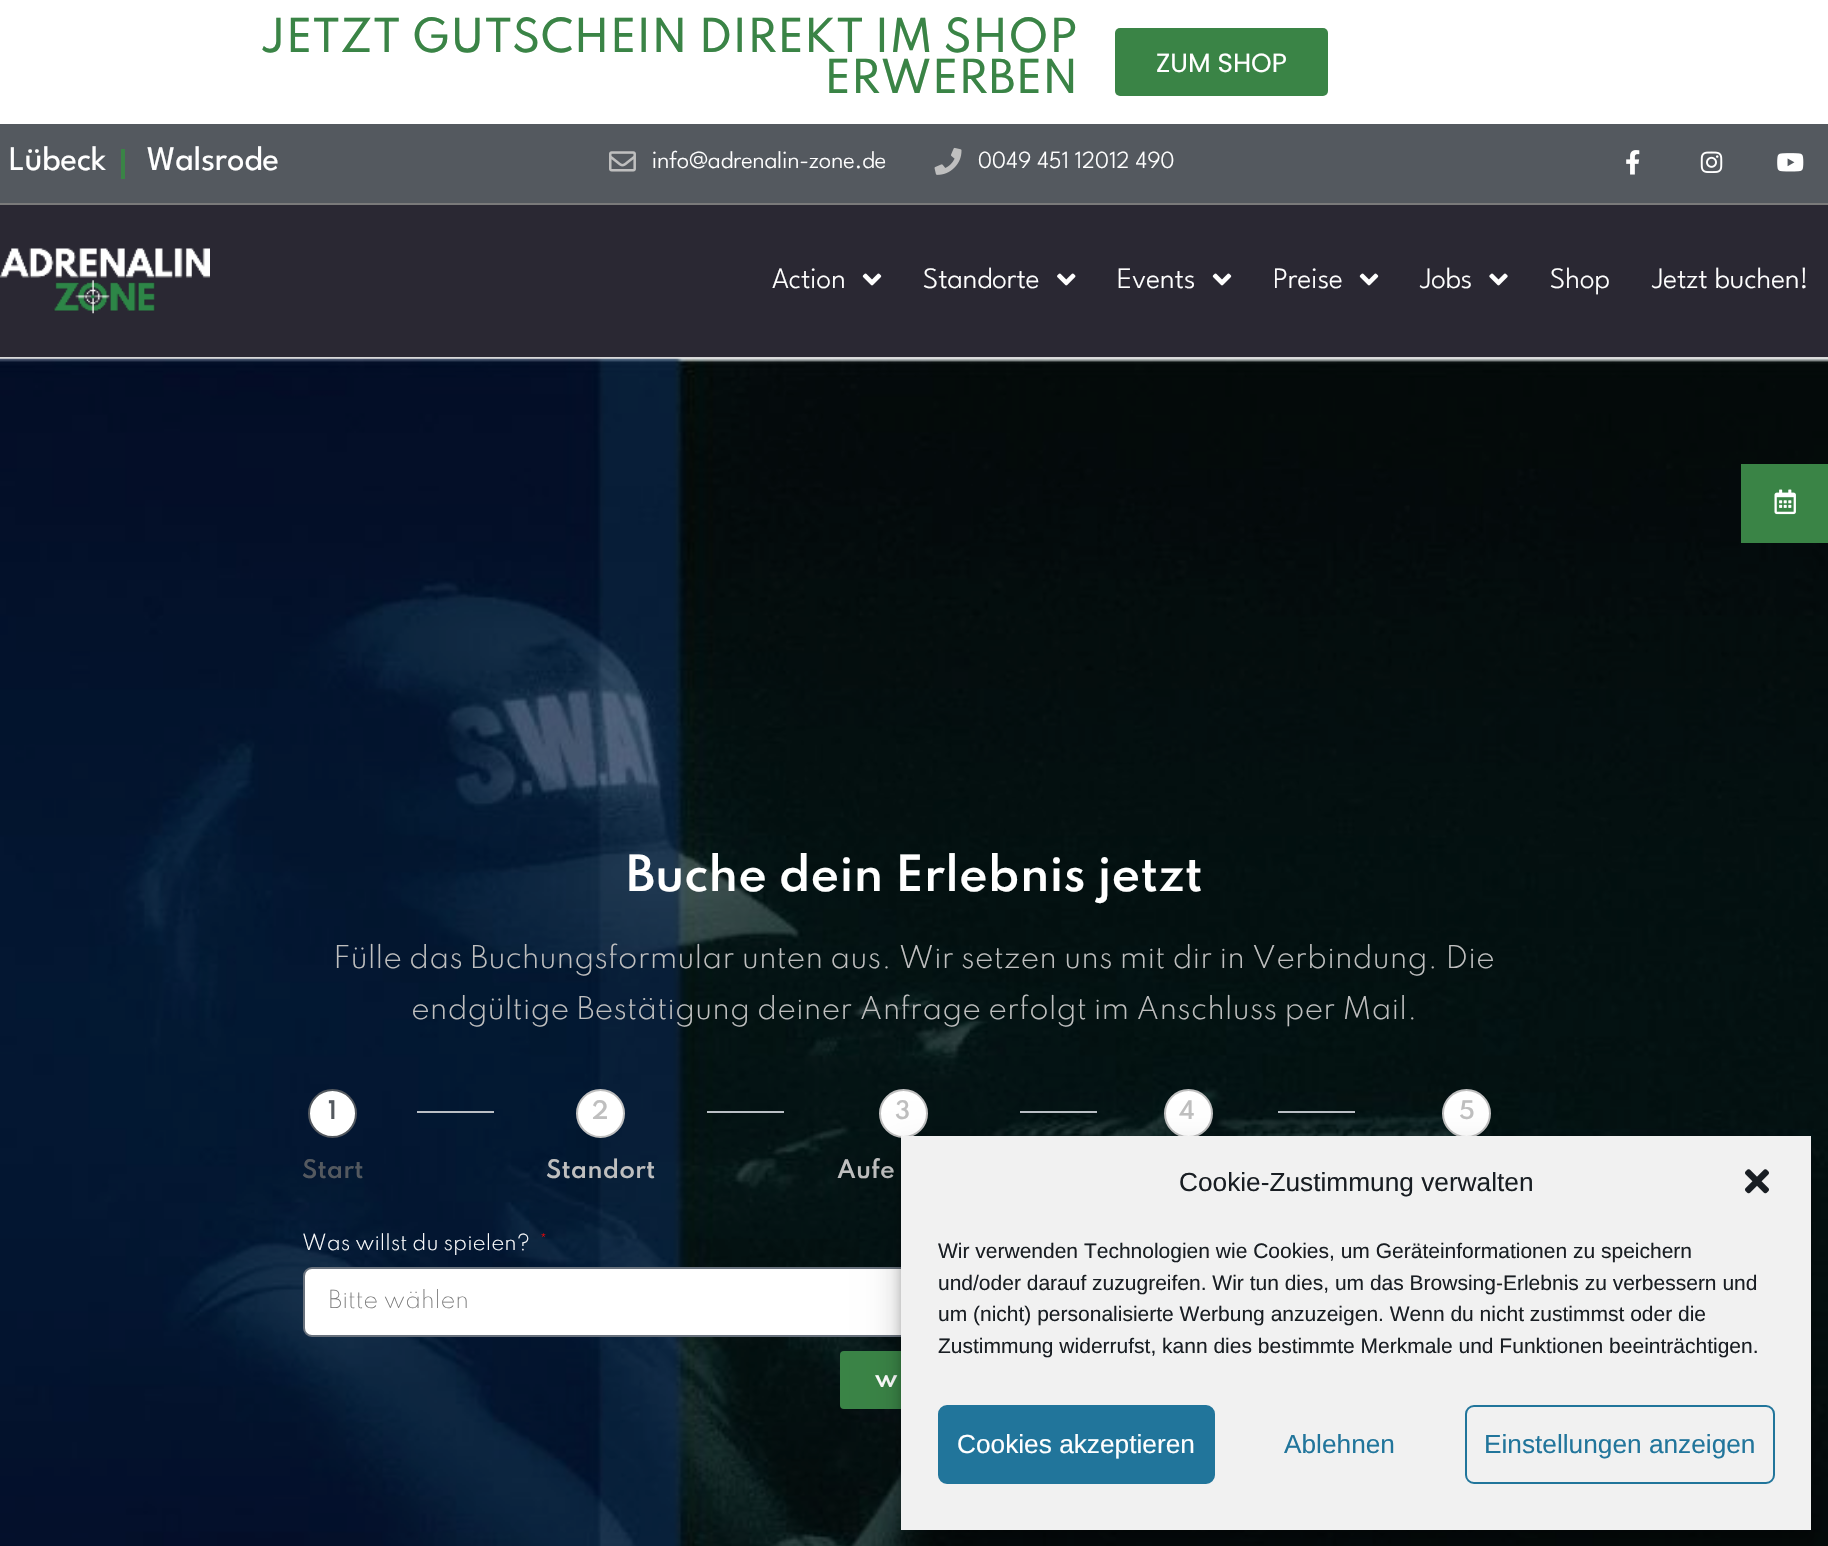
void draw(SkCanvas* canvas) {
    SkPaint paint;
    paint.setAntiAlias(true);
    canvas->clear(0xFFFFFFFF);
    SkFont font1(fontMgr->matchFamilyStyle("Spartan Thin", SkFontStyle(100, SkFontStyle::kNormal_Width, SkFontStyle::kUpright_Slant)), 41.6f);
    font1.setSubpixel(true);
    paint.setColor(0xFF3A8446);
    canvas->drawString("JETZT GUTSCHEIN DIREKT IM SHOP", 260, 52, font1, paint);
    canvas->drawString("ERWERBEN", 824, 93, font1, paint);
    canvas->drawRoundRect(SkRect::MakeXYWH(1115, 28, 213, 68), 5, 5, paint);
    SkFont font2(fontMgr->matchFamilyStyle("Poppins", SkFontStyle::Normal()), 26.25f);
    font2.setSubpixel(true);
    paint.setColor(0xFFFFFFFF);
    canvas->drawString("ZUM SHOP", 1156, 72, font2, paint);
    paint.setColor(0xFF54595F);
    canvas->drawRect(SkRect::MakeXYWH(0, 124, 1828, 79), paint);
    paint.setColor(0xFF7A7A7A);
    canvas->drawRect(SkRect::MakeXYWH(0, 203, 1828, 2), paint);
    SkFont font3(fontMgr->matchFamilyStyle("League Spartan", SkFontStyle::Normal()), 34.5f);
    font3.setSubpixel(true);
    paint.setColor(0xFFFFFFFF);
    canvas->drawString("Lübeck", 9, 170, font3, paint);
    paint.setColor(0xFF3A8446);
    canvas->drawRect(SkRect::MakeXYWH(121, 149, 4, 30), paint);
    paint.setColor(0xFFFFFFFF);
    canvas->drawString("Walsrode", 147, 170, font3, paint);
    canvas->drawImageRect(SkImages::DeferredFromEncodedData(SkData::MakeFromFileName("img1.png")), SkRect::MakeXYWH(609, 151, 27, 21), SkSamplingOptions());
    SkFont font4(fontMgr->matchFamilyStyle("League Spartan", SkFontStyle(300, SkFontStyle::kNormal_Width, SkFontStyle::kUpright_Slant)), 24.5f);
    font4.setSubpixel(true);
    canvas->drawString("info@adrenalin-zone.de", 652, 168, font4, paint);
    canvas->drawImageRect(SkImages::DeferredFromEncodedData(SkData::MakeFromFileName("img2.png")), SkRect::MakeXYWH(934, 147, 28, 28), SkSamplingOptions());
    canvas->drawString("0049 451 12012 490", 978, 168, font4, paint);
    canvas->drawImageRect(SkImages::DeferredFromEncodedData(SkData::MakeFromFileName("img3.png")), SkRect::MakeXYWH(1626, 150, 14, 25), SkSamplingOptions());
    canvas->drawImageRect(SkImages::DeferredFromEncodedData(SkData::MakeFromFileName("img4.png")), SkRect::MakeXYWH(1700, 151, 23, 22), SkSamplingOptions());
    canvas->drawImageRect(SkImages::DeferredFromEncodedData(SkData::MakeFromFileName("img5.png")), SkRect::MakeXYWH(1777, 153, 27, 19), SkSamplingOptions());
    paint.setColor(0xFF2A2833);
    canvas->drawRect(SkRect::MakeXYWH(0, 205, 1828, 152), paint);
    paint.setColor(0xFFD8D8D8);
    canvas->drawRect(SkRect::MakeXYWH(0, 357, 1828, 2), paint);
    canvas->drawImageRect(SkImages::DeferredFromEncodedData(SkData::MakeFromFileName("img6.png")), SkRect::MakeXYWH(0, 248, 210, 66), SkSamplingOptions());
    SkFont font5(fontMgr->matchFamilyStyle("League Spartan", SkFontStyle(300, SkFontStyle::kNormal_Width, SkFontStyle::kUpright_Slant)), 29.5f);
    font5.setSubpixel(true);
    paint.setColor(0xFFFFFFFF);
    canvas->drawString("Action", 772, 288, font5, paint);
    canvas->drawImageRect(SkImages::DeferredFromEncodedData(SkData::MakeFromFileName("img7.png")), SkRect::MakeXYWH(862, 273, 20, 13), SkSamplingOptions());
    canvas->drawString("Standorte", 923, 288, font5, paint);
    canvas->drawImageRect(SkImages::DeferredFromEncodedData(SkData::MakeFromFileName("img8.png")), SkRect::MakeXYWH(1057, 273, 19, 13), SkSamplingOptions());
    canvas->drawString("Events", 1117, 288, font5, paint);
    canvas->drawImageRect(SkImages::DeferredFromEncodedData(SkData::MakeFromFileName("img7.png")), SkRect::MakeXYWH(1212, 273, 20, 13), SkSamplingOptions());
    canvas->drawString("Preise", 1273, 288, font5, paint);
    canvas->drawImageRect(SkImages::DeferredFromEncodedData(SkData::MakeFromFileName("img7.png")), SkRect::MakeXYWH(1359, 273, 20, 13), SkSamplingOptions());
    canvas->drawString("Jobs", 1420, 288, font5, paint);
    canvas->drawImageRect(SkImages::DeferredFromEncodedData(SkData::MakeFromFileName("img9.png")), SkRect::MakeXYWH(1489, 273, 19, 13), SkSamplingOptions());
    canvas->drawString("Shop", 1550, 288, font5, paint);
    canvas->drawString("Jetzt buchen!", 1652, 288, font5, paint);
    canvas->drawImageRect(SkImages::DeferredFromEncodedData(SkData::MakeFromFileName("img11.png")), SkRect::MakeXYWH(0, 358, 1828, 1188), SkSamplingOptions());
    paint.setColor(0xFF3A8446);
    canvas->drawRect(SkRect::MakeXYWH(1741, 464, 87, 79), paint);
    canvas->drawImageRect(SkImages::DeferredFromEncodedData(SkData::MakeFromFileName("img10.png")), SkRect::MakeXYWH(1774, 489, 22, 26), SkSamplingOptions());
    SkFont font6(fontMgr->matchFamilyStyle("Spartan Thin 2", SkFontStyle(100, SkFontStyle::kNormal_Width, SkFontStyle::kUpright_Slant)), 44.1f);
    font6.setSubpixel(true);
    paint.setColor(0xFFFFFFFF);
    canvas->drawString("Buche dein Erlebnis jetzt", 626, 891, font6, paint);
    SkFont font7(fontMgr->matchFamilyStyle("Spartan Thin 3", SkFontStyle(100, SkFontStyle::kNormal_Width, SkFontStyle::kUpright_Slant)), 28);
    font7.setSubpixel(true);
    paint.setColor(0xFFBFBFBF);
    canvas->drawString("Fülle das Buchungsformular unten aus. Wir setzen uns mit dir in Verbindung. Die", 333, 968, font7, paint);
    canvas->drawString("endgültige Bestätigung deiner Anfrage erfolgt im Anschluss per Mail.", 411, 1019, font7, paint);
    paint.setColor(0xFFFFFFFF);
    canvas->drawCircle(332.5f, 1113.5f, 23.5f, paint);
    paint.setStyle(SkPaint::kStroke_Style);
    paint.setStrokeWidth(2);
    paint.setColor(0xFF54595F);
    canvas->drawCircle(332.5f, 1113.5f, 23.5f, paint);
    SkFont font8(fontMgr->matchFamilyStyle("Spartan Thin 2", SkFontStyle(100, SkFontStyle::kNormal_Width, SkFontStyle::kUpright_Slant)), 22.75f);
    font8.setSubpixel(true);
    paint.setStyle(SkPaint::kFill_Style);
    canvas->drawString("1", 328, 1119, font8, paint);
    canvas->drawString("Start", 302, 1178, font8, paint);
    paint.setColor(0xFFBABFC5);
    canvas->drawRect(SkRect::MakeXYWH(417, 1111, 77, 2), paint);
    paint.setColor(0xFFFFFFFF);
    canvas->drawCircle(600.5f, 1113.5f, 23.5f, paint);
    paint.setStyle(SkPaint::kStroke_Style);
    paint.setColor(0xFFBFBFBF);
    canvas->drawCircle(600.5f, 1113.5f, 23.5f, paint);
    paint.setStyle(SkPaint::kFill_Style);
    canvas->drawString("2", 592, 1119, font8, paint);
    canvas->drawString("Standort", 546, 1178, font8, paint);
    paint.setColor(0xFFBABFC5);
    canvas->drawRect(SkRect::MakeXYWH(707, 1111, 77, 2), paint);
    paint.setColor(0xFFFFFFFF);
    canvas->drawCircle(903.5f, 1113.5f, 23.5f, paint);
    paint.setStyle(SkPaint::kStroke_Style);
    paint.setColor(0xFFBFBFBF);
    canvas->drawCircle(903.5f, 1113.5f, 23.5f, paint);
    paint.setStyle(SkPaint::kFill_Style);
    canvas->drawString("3", 895, 1119, font8, paint);
    canvas->drawString("Aufe", 837, 1178, font8, paint);
    paint.setColor(0xFFBABFC5);
    canvas->drawRect(SkRect::MakeXYWH(1020, 1111, 77, 2), paint);
    paint.setColor(0xFFFFFFFF);
    canvas->drawCircle(1188.5f, 1113.5f, 23.5f, paint);
    paint.setStyle(SkPaint::kStroke_Style);
    paint.setColor(0xFFBFBFBF);
    canvas->drawCircle(1188.5f, 1113.5f, 23.5f, paint);
    paint.setStyle(SkPaint::kFill_Style);
    canvas->drawString("4", 1179, 1119, font8, paint);
    paint.setColor(0xFFBABFC5);
    canvas->drawRect(SkRect::MakeXYWH(1278, 1111, 77, 2), paint);
    paint.setColor(0xFFFFFFFF);
    canvas->drawCircle(1466.5f, 1113.5f, 23.5f, paint);
    paint.setStyle(SkPaint::kStroke_Style);
    paint.setColor(0xFFBFBFBF);
    canvas->drawCircle(1466.5f, 1113.5f, 23.5f, paint);
    paint.setStyle(SkPaint::kFill_Style);
    canvas->drawString("5", 1459, 1119, font8, paint);
    SkFont font9(fontMgr->matchFamilyStyle("Spartan Thin 3", SkFontStyle(100, SkFontStyle::kNormal_Width, SkFontStyle::kUpright_Slant)), 19.6f);
    font9.setSubpixel(true);
    paint.setColor(0xFFFFFFFF);
    canvas->drawString("Was willst du spielen?", 302, 1250, font9, paint);
    paint.setColor(0xFFFF0000);
    canvas->drawString("*", 539, 1250, font9, paint);
    paint.setColor(0xFFFFFFFF);
    canvas->drawRoundRect(SkRect::MakeXYWH(304, 1268, 1223, 68), 8, 8, paint);
    paint.setStyle(SkPaint::kStroke_Style);
    paint.setColor(0xFF69727D);
    canvas->drawRoundRect(SkRect::MakeXYWH(304, 1268, 1223, 68), 8, 8, paint);
    SkFont font10(fontMgr->matchFamilyStyle("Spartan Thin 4", SkFontStyle(100, SkFontStyle::kNormal_Width, SkFontStyle::kUpright_Slant)), 22);
    font10.setSubpixel(true);
    paint.setStyle(SkPaint::kFill_Style);
    paint.setColor(0xFF7A7A7A);
    canvas->drawString("Bitte wählen", 328, 1308, font10, paint);
    paint.setColor(0xFF3A8446);
    canvas->drawRoundRect(SkRect::MakeXYWH(840, 1351, 149, 58), 4, 4, paint);
    paint.setColor(0xFFFFFFFF);
    canvas->drawString("w", 875, 1387, font8, paint);
    paint.setColor(0x3B000000);
    paint.setMaskFilter(SkMaskFilter::MakeBlur(kNormal_SkBlurStyle, 5));
    canvas->drawRect(SkRect::MakeXYWH(901, 1146, 910, 394), paint);
    paint.setMaskFilter(nullptr);
    paint.setColor(0x30000000);
    paint.setMaskFilter(SkMaskFilter::MakeBlur(kNormal_SkBlurStyle, 17.5f));
    canvas->drawRect(SkRect::MakeXYWH(901, 1153, 910, 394), paint);
    paint.setMaskFilter(nullptr);
    paint.setColor(0xFFF1F1F1);
    canvas->drawRect(SkRect::MakeXYWH(901, 1136, 910, 394), paint);
    SkFont font11(fontMgr->matchFamilyStyle("Liberation Sans", SkFontStyle::Normal()), 26.25f);
    font11.setSubpixel(true);
    paint.setColor(0xFF191E23);
    canvas->drawString("Cookie-Zustimmung verwalten", 1179, 1191, font11, paint);
    canvas->drawImageRect(SkImages::DeferredFromEncodedData(SkData::MakeFromFileName("img12.png")), SkRect::MakeXYWH(1745, 1169, 24, 25), SkSamplingOptions());
    SkFont font12(fontMgr->matchFamilyStyle("Liberation Sans", SkFontStyle::Normal()), 21);
    font12.setSubpixel(true);
    canvas->drawString("Wir verwenden Technologien wie Cookies, um Geräteinformationen zu speichern", 938, 1258, font12, paint);
    canvas->drawString("und/oder darauf zuzugreifen. Wir tun dies, um das Browsing-Erlebnis zu verbessern und", 938, 1290, font12, paint);
    canvas->drawString("um (nicht) personalisierte Werbung anzuzeigen. Wenn du nicht zustimmst oder die", 938, 1321, font12, paint);
    canvas->drawString("Zustimmung widerrufst, kann dies bestimmte Merkmale und Funktionen beeinträchtigen.", 938, 1353, font12, paint);
    paint.setColor(0xFF21759B);
    canvas->drawRoundRect(SkRect::MakeXYWH(939, 1406, 275, 77), 8, 8, paint);
    paint.setStyle(SkPaint::kStroke_Style);
    canvas->drawRoundRect(SkRect::MakeXYWH(939, 1406, 275, 77), 8, 8, paint);
    paint.setStyle(SkPaint::kFill_Style);
    paint.setColor(0xFFFFFFFF);
    canvas->drawString("Cookies akzeptieren", 957, 1453, font11, paint);
    paint.setColor(0xFF21759B);
    canvas->drawString("Ablehnen", 1284, 1453, font11, paint);
    paint.setStyle(SkPaint::kStroke_Style);
    canvas->drawRoundRect(SkRect::MakeXYWH(1466, 1406, 308, 77), 8, 8, paint);
    paint.setStyle(SkPaint::kFill_Style);
    canvas->drawString("Einstellungen anzeigen", 1484, 1453, font11, paint);
}
